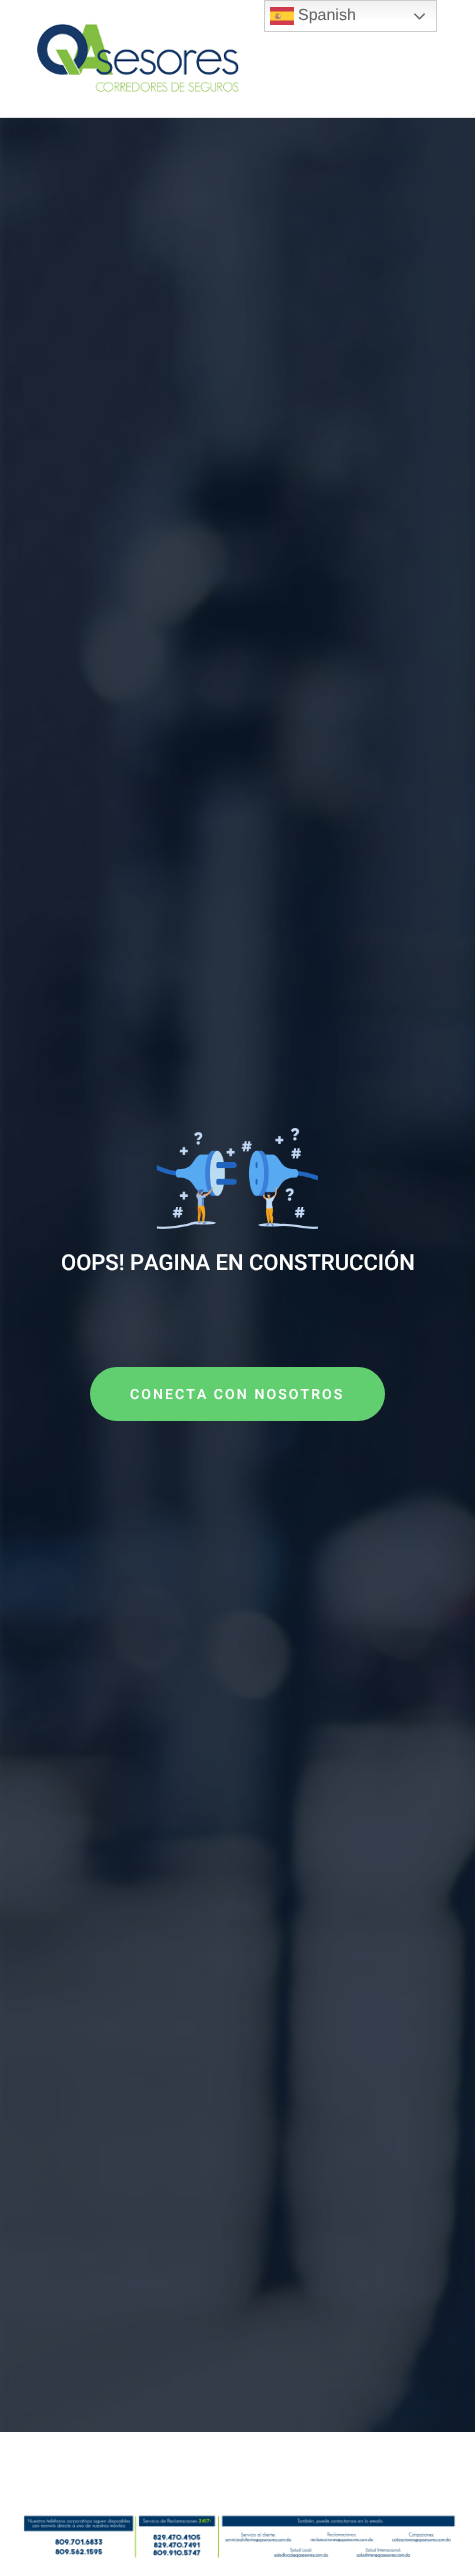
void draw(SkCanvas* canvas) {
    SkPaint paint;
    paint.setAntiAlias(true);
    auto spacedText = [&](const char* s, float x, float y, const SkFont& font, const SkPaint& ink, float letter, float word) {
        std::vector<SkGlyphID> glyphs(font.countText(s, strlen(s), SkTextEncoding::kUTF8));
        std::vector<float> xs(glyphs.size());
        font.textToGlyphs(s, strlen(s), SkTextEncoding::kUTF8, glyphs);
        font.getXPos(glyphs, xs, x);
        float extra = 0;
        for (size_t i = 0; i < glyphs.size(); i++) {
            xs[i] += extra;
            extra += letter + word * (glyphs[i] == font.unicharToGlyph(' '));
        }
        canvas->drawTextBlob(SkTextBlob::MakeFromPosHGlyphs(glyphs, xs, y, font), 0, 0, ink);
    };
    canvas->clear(0xFFFFFFFF);
    {
        const SkColor colors[] = {0xFFEFEFEF, 0xFFFFFFFF};
        const float stops[] = {0, 0.7f};
        const SkPoint ends[] = {{351, 0}, {351, 32}};
        paint.setShader(SkGradientShader::MakeLinear(ends, colors, stops, 2, SkTileMode::kClamp));
        paint.setAlpha(255);
    }
    canvas->drawRect(SkRect::MakeXYWH(265, 1, 171, 18), paint);
    paint.setStyle(SkPaint::kStroke_Style);
    paint.setStrokeWidth(1);
    paint.setShader(nullptr);
    paint.setColor(0xFFCCCCCC);
    canvas->drawRect(SkRect::MakeXYWH(264.5f, 0.5f, 172, 31), paint);
    canvas->drawImageRect(SkImages::DeferredFromEncodedData(SkData::MakeFromFileName("img1.png")), SkRect::MakeXYWH(270, 7, 24, 18), SkSamplingOptions());
    SkFont font1(fontMgr->matchFamilyStyle("Liberation Sans", SkFontStyle::Normal()), 16);
    font1.setSubpixel(true);
    paint.setStyle(SkPaint::kFill_Style);
    paint.setColor(0xFF666666);
    canvas->drawString("Spanish", 298, 20, font1, paint);
    canvas->drawImageRect(SkImages::DeferredFromEncodedData(SkData::MakeFromFileName("img2.png")), SkRect::MakeXYWH(414, 13, 11, 7), SkSamplingOptions());
    paint.setColor(0xFFDDDDDD);
    canvas->drawRect(SkRect::MakeXYWH(0, 117, 475, 1), paint);
    canvas->drawImageRect(SkImages::DeferredFromEncodedData(SkData::MakeFromFileName("img3.png")), SkRect::MakeXYWH(37, 23, 202, 70), SkSamplingOptions());
    canvas->drawImageRect(SkImages::DeferredFromEncodedData(SkData::MakeFromFileName("img4.png")), SkRect::MakeXYWH(0, 118, 475, 2314), SkSamplingOptions());
    canvas->drawImageRect(SkImages::DeferredFromEncodedData(SkData::MakeFromFileName("img5.png")), SkRect::MakeXYWH(156, 1128, 162, 101), SkSamplingOptions());
    SkFont font2(fontMgr->matchFamilyStyle("Roboto", SkFontStyle(500, SkFontStyle::kNormal_Width, SkFontStyle::kUpright_Slant)), 22);
    font2.setSubpixel(true);
    paint.setColor(0xFFFFFFFF);
    canvas->drawString("OOPS! PAGINA EN CONSTRUCCIÓN", 61, 1270, font2, paint);
    paint.setColor(0xFF61CE70);
    canvas->drawRoundRect(SkRect::MakeXYWH(90, 1367, 295, 54), 27, 27, paint);
    SkFont font3(fontMgr->matchFamilyStyle("Roboto", SkFontStyle(500, SkFontStyle::kNormal_Width, SkFontStyle::kUpright_Slant)), 14);
    font3.setSubpixel(true);
    paint.setColor(0xFFFFFFFF);
    spacedText("CONECTA CON NOSOTROS", 130, 1399, font3, paint, 2.1f, 0);
    canvas->drawImageRect(SkImages::DeferredFromEncodedData(SkData::MakeFromFileName("img6.png")), SkRect::MakeXYWH(23, 2515, 433, 43), SkSamplingOptions());
}
